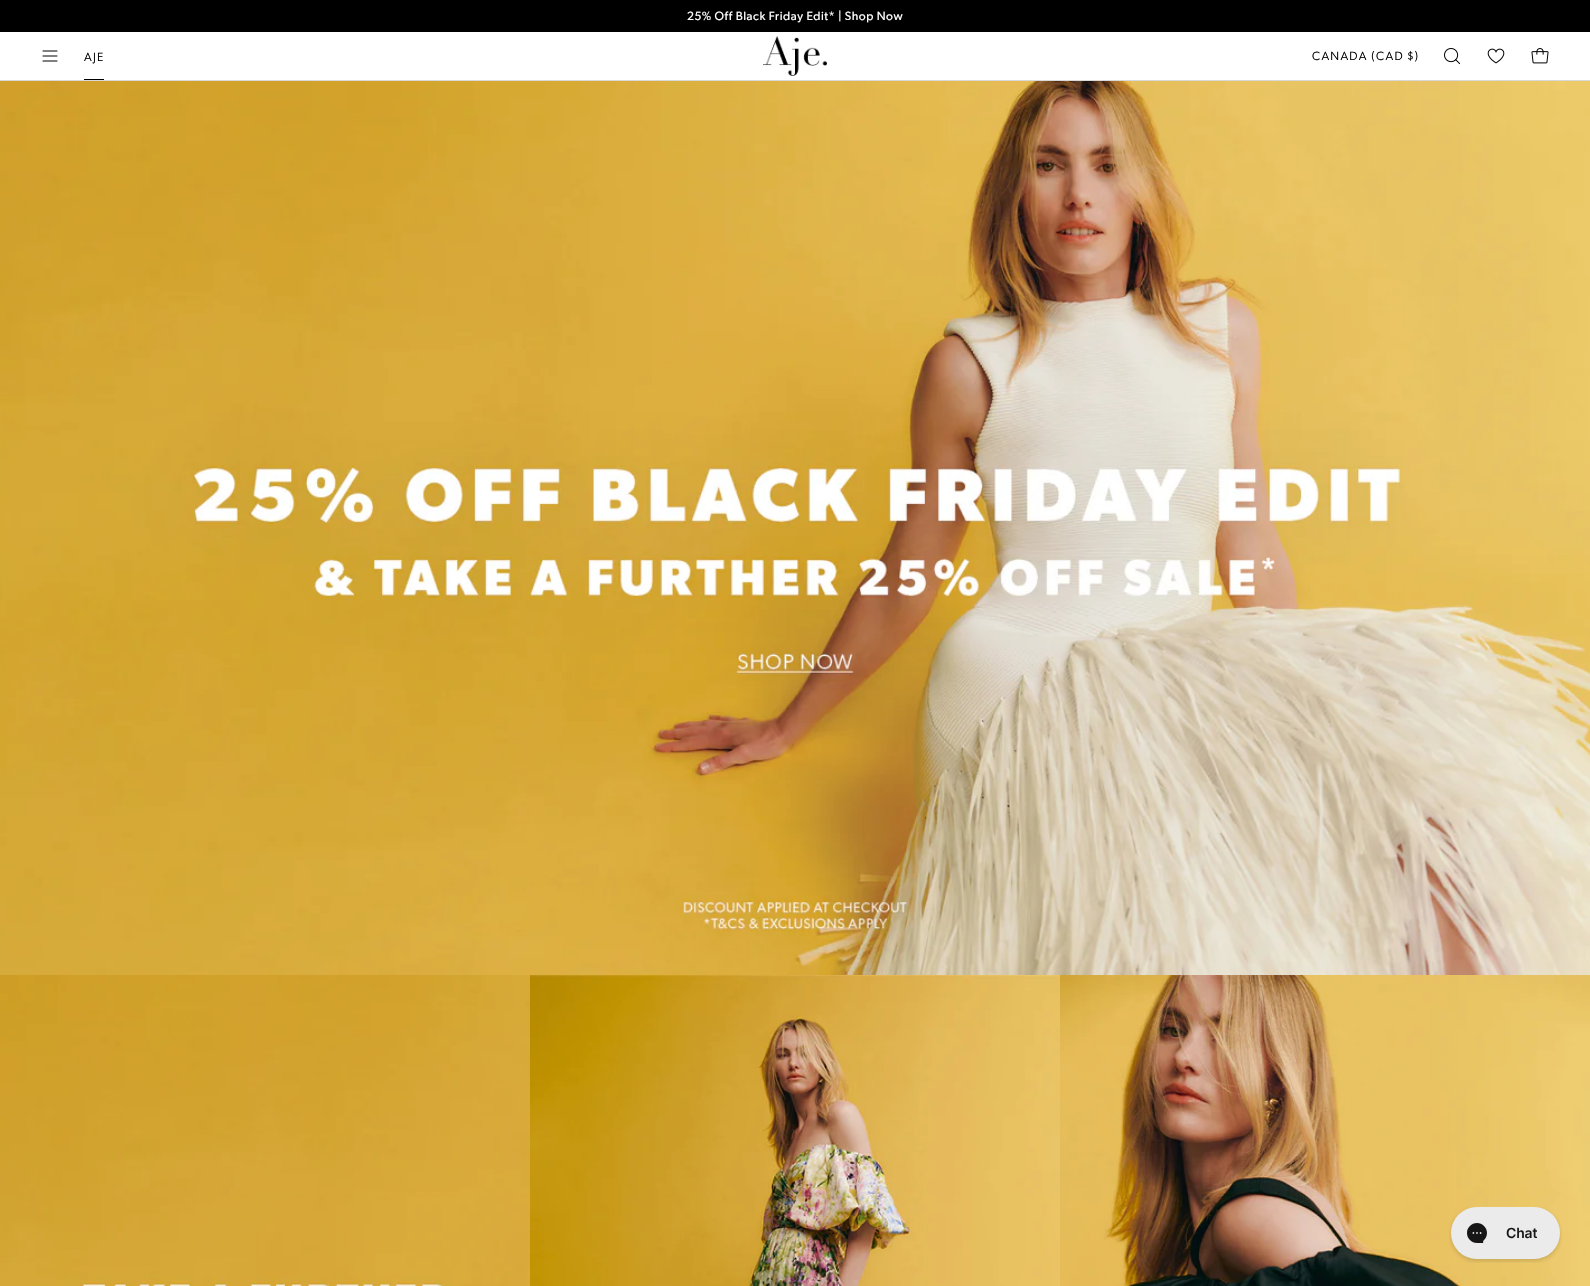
void draw(SkCanvas* canvas) {
    SkPaint paint;
    paint.setAntiAlias(true);
    auto spacedText = [&](const char* s, float x, float y, const SkFont& font, const SkPaint& ink, float letter, float word) {
        std::vector<SkGlyphID> glyphs(font.countText(s, strlen(s), SkTextEncoding::kUTF8));
        std::vector<float> xs(glyphs.size());
        font.textToGlyphs(s, strlen(s), SkTextEncoding::kUTF8, glyphs);
        font.getXPos(glyphs, xs, x);
        float extra = 0;
        for (size_t i = 0; i < glyphs.size(); i++) {
            xs[i] += extra;
            extra += letter + word * (glyphs[i] == font.unicharToGlyph(' '));
        }
        canvas->drawTextBlob(SkTextBlob::MakeFromPosHGlyphs(glyphs, xs, y, font), 0, 0, ink);
    };
    canvas->clear(0xFFFFFFFF);
    paint.setColor(0xFF000000);
    canvas->drawRect(SkRect::MakeXYWH(0, 0, 1590, 32), paint);
    SkFont font1(fontMgr->matchFamilyStyle("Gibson", SkFontStyle::Normal()), 12);
    font1.setSubpixel(true);
    paint.setColor(0xFFFFFFFF);
    spacedText("25% Off Black Friday Edit* | Shop Now", 687, 20, font1, paint, 0.5f, 0);
    paint.setColor(0xFFD9D9D9);
    canvas->drawRect(SkRect::MakeXYWH(0, 80, 1590, 1), paint);
    paint.setStyle(SkPaint::kStroke_Style);
    paint.setStrokeWidth(1);
    paint.setStrokeCap(SkPaint::kRound_Cap);
    paint.setStrokeJoin(SkPaint::kRound_Join);
    paint.setColor(0xFF000000);
    canvas->drawPath(SkPathBuilder().moveTo(43, 56).lineTo(57, 56).moveTo(43, 51).lineTo(57, 51).moveTo(43, 61).lineTo(57, 61).detach(), paint);
    SkFont font2(fontMgr->matchFamilyStyle("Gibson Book", SkFontStyle::Normal()), 12);
    font2.setSubpixel(true);
    paint.setStyle(SkPaint::kFill_Style);
    spacedText("AJE", 84, 61, font2, paint, 1.25f, 0);
    canvas->drawRect(SkRect::MakeXYWH(84, 79, 20, 1), paint);
    canvas->drawImageRect(SkImages::DeferredFromEncodedData(SkData::MakeFromFileName("img1.png")), SkRect::MakeXYWH(763, 36, 64, 40), SkSamplingOptions());
    spacedText("CANADA (CAD $)", 1312, 60, font2, paint, 1.25f, 0);
    canvas->drawImageRect(SkImages::DeferredFromEncodedData(SkData::MakeFromFileName("img2.png")), SkRect::MakeXYWH(1444, 48, 17, 17), SkSamplingOptions());
    canvas->drawImageRect(SkImages::DeferredFromEncodedData(SkData::MakeFromFileName("img3.png")), SkRect::MakeXYWH(1487, 48, 18, 16), SkSamplingOptions());
    canvas->drawImageRect(SkImages::DeferredFromEncodedData(SkData::MakeFromFileName("img4.png")), SkRect::MakeXYWH(1531, 48, 18, 16), SkSamplingOptions());
    canvas->drawImageRect(SkImages::DeferredFromEncodedData(SkData::MakeFromFileName("img5.png")), SkRect::MakeXYWH(0, 81, 1590, 894), SkSamplingOptions());
    canvas->drawImageRect(SkImages::DeferredFromEncodedData(SkData::MakeFromFileName("img6.png")), SkRect::MakeXYWH(0, 975, 530, 311), SkSamplingOptions());
    canvas->drawImageRect(SkImages::DeferredFromEncodedData(SkData::MakeFromFileName("img7.png")), SkRect::MakeXYWH(530, 975, 530, 311), SkSamplingOptions());
    canvas->drawImageRect(SkImages::DeferredFromEncodedData(SkData::MakeFromFileName("img8.png")), SkRect::MakeXYWH(1060, 975, 530, 311), SkSamplingOptions());
    canvas->drawImageRect(SkImages::DeferredFromEncodedData(SkData::MakeFromFileName("img9.png")), SkRect::MakeXYWH(1449, 1207, 113, 56), SkSamplingOptions());
}
